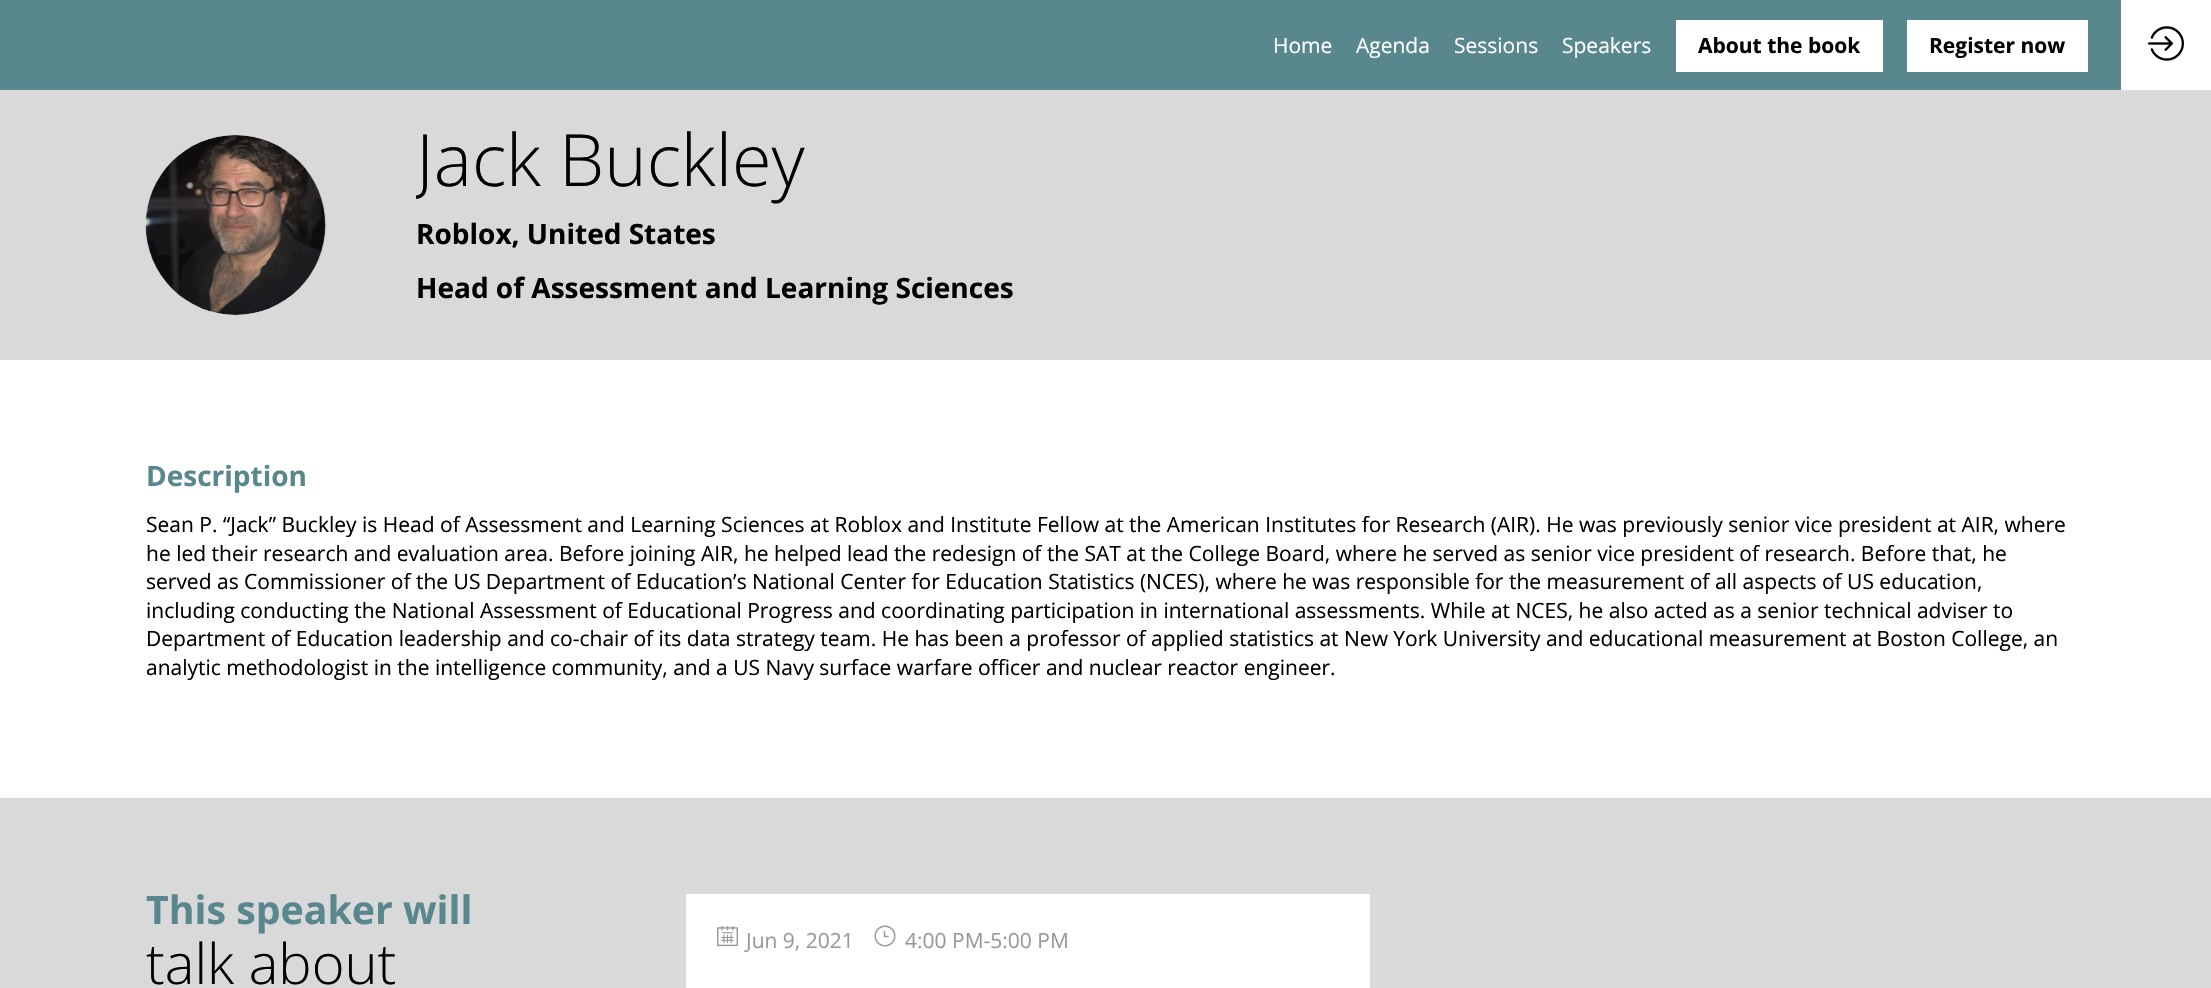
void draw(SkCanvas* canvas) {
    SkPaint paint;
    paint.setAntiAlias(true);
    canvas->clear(0xFF58888D);
    SkFont font1(fontMgr->matchFamilyStyle("Open Sans", SkFontStyle::Normal()), 21);
    font1.setSubpixel(true);
    paint.setColor(0xFFFFFFFF);
    canvas->drawString("Home", 1273, 53, font1, paint);
    canvas->drawString("Agenda", 1356, 53, font1, paint);
    canvas->drawString("Sessions", 1454, 53, font1, paint);
    canvas->drawString("Speakers", 1562, 53, font1, paint);
    canvas->drawRect(SkRect::MakeXYWH(1676, 20, 207, 52), paint);
    SkFont font2(fontMgr->matchFamilyStyle("Open Sans", SkFontStyle::Bold()), 21);
    font2.setSubpixel(true);
    paint.setColor(0xFF030000);
    canvas->drawString("About the book", 1698, 53, font2, paint);
    paint.setColor(0xFFFFFFFF);
    canvas->drawRect(SkRect::MakeXYWH(1907, 20, 181, 52), paint);
    paint.setColor(0xFF030000);
    canvas->drawString("Register now", 1929, 53, font2, paint);
    paint.setColor(0xFFFFFFFF);
    canvas->drawRect(SkRect::MakeXYWH(2121, 0, 90, 90), paint);
    canvas->drawImageRect(SkImages::DeferredFromEncodedData(SkData::MakeFromFileName("img1.png")), SkRect::MakeXYWH(2148, 26, 36, 35), SkSamplingOptions());
    paint.setColor(0xFFD9D9D9);
    canvas->drawRect(SkRect::MakeXYWH(0, 90, 2211, 270), paint);
    paint.setColor(0xFFCECECE);
    canvas->drawCircle(236, 225, 90, paint);
    canvas->drawImageRect(SkImages::DeferredFromEncodedData(SkData::MakeFromFileName("img2.png")), SkRect::MakeXYWH(145, 135, 181, 180), SkSamplingOptions());
    canvas->save();
    canvas->clipRect(SkRect::MakeXYWH(416, 120, 1650, 203));
    SkFont font3(fontMgr->matchFamilyStyle("Open Sans", SkFontStyle(300, SkFontStyle::kNormal_Width, SkFontStyle::kUpright_Slant)), 72);
    font3.setSubpixel(true);
    paint.setColor(0xFF030000);
    canvas->drawString("Jack", 416, 186, font3, paint);
    canvas->restore();
    canvas->drawString("Buckley", 559, 186, font3, paint);
    SkFont font4(fontMgr->matchFamilyStyle("Open Sans", SkFontStyle::Bold()), 28);
    font4.setSubpixel(true);
    canvas->drawString("Roblox, United States", 416, 244, font4, paint);
    canvas->drawString("Head of Assessment and Learning Sciences", 416, 298, font4, paint);
    paint.setColor(0xFFFFFFFF);
    canvas->drawRect(SkRect::MakeXYWH(0, 360, 2211, 438), paint);
    paint.setColor(0xFF58888D);
    canvas->drawString("Description", 146, 486, font4, paint);
    paint.setColor(0xFF030000);
    canvas->drawString("Sean P. “Jack” Buckley is Head of Assessment and Learning Sciences at Roblox and Institute Fellow at the American Institutes for Research (AIR). He was previously senior vice president at AIR, where", 146, 532, font1, paint);
    canvas->drawString("he led their research and evaluation area. Before joining AIR, he helped lead the redesign of the SAT at the College Board, where he served as senior vice president of research. Before that, he", 146, 561, font1, paint);
    canvas->drawString("served as Commissioner of the US Department of Education’s National Center for Education Statistics (NCES), where he was responsible for the measurement of all aspects of US education,", 146, 589, font1, paint);
    canvas->drawString("including conducting the National Assessment of Educational Progress and coordinating participation in international assessments. While at NCES, he also acted as a senior technical adviser to", 146, 618, font1, paint);
    canvas->drawString("Department of Education leadership and co-chair of its data strategy team. He has been a professor of applied statistics at New York University and educational measurement at Boston College, an", 146, 646, font1, paint);
    canvas->drawString("analytic methodologist in the intelligence community, and a US Navy surface warfare officer and nuclear reactor engineer.", 146, 675, font1, paint);
    paint.setColor(0xFFD9D9D9);
    canvas->drawRect(SkRect::MakeXYWH(0, 798, 2211, 190), paint);
    SkFont font5(fontMgr->matchFamilyStyle("Open Sans", SkFontStyle::Bold()), 39.25f);
    font5.setSubpixel(true);
    paint.setColor(0xFF58888D);
    canvas->drawString("This speaker will", 146, 924, font5, paint);
    SkFont font6(fontMgr->matchFamilyStyle("Open Sans", SkFontStyle(300, SkFontStyle::kNormal_Width, SkFontStyle::kUpright_Slant)), 56);
    font6.setSubpixel(true);
    paint.setColor(0xFF030000);
    canvas->drawString("talk about", 146, 984, font6, paint);
    paint.setColor(0xFFFFFFFF);
    canvas->drawRect(SkRect::MakeXYWH(686, 894, 684, 94), paint);
    canvas->drawImageRect(SkImages::DeferredFromEncodedData(SkData::MakeFromFileName("img3.png")), SkRect::MakeXYWH(717, 925, 21, 22), SkSamplingOptions());
    paint.setColor(0xFF999999);
    canvas->drawString("Jun 9, 2021", 746, 948, font1, paint);
    canvas->drawImageRect(SkImages::DeferredFromEncodedData(SkData::MakeFromFileName("img4.png")), SkRect::MakeXYWH(874, 925, 22, 22), SkSamplingOptions());
    canvas->drawString("4:00 PM-5:00 PM", 905, 948, font1, paint);
}
